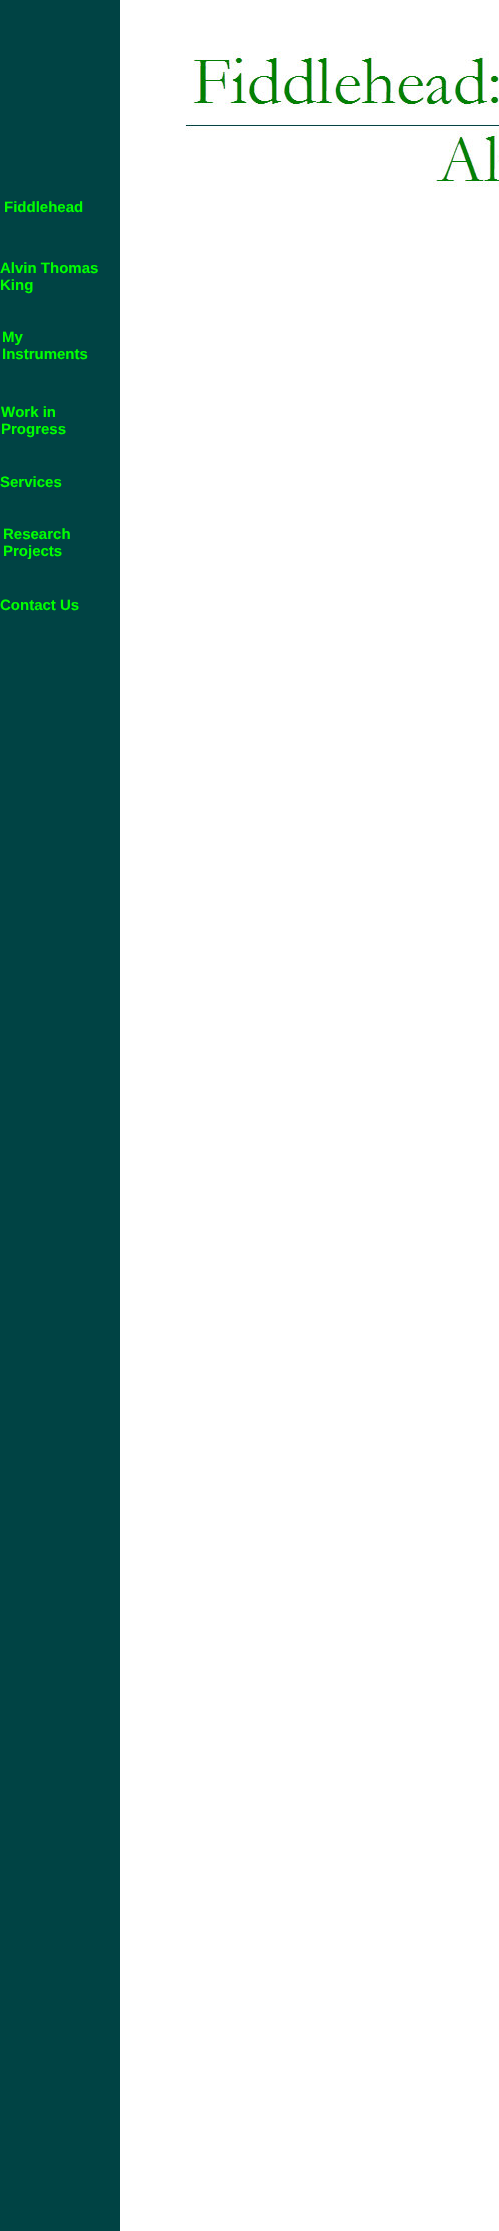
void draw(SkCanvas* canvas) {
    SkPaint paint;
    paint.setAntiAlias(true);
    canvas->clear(0xFFFFFFFF);
    paint.setColor(0xFF004344);
    canvas->drawRect(SkRect::MakeXYWH(0, 0, 120, 2231), paint);
    canvas->drawImageRect(SkImages::DeferredFromEncodedData(SkData::MakeFromFileName("img1.png")), SkRect::MakeXYWH(185, 51, 314, 136), SkSamplingOptions());
    SkFont font1(fontMgr->matchFamilyStyle("Liberation Sans", SkFontStyle::Bold()), 15);
    font1.setSubpixel(true);
    paint.setColor(0xFF00FF00);
    canvas->drawString("Fiddlehead", 4, 212, font1, paint);
    canvas->drawString("Alvin Thomas", 0, 273, font1, paint);
    canvas->drawString("King", 0, 290, font1, paint);
    canvas->drawString("My", 2, 342, font1, paint);
    canvas->drawString("Instruments", 2, 359, font1, paint);
    canvas->drawString("Work in", 1, 417, font1, paint);
    canvas->drawString("Progress", 1, 434, font1, paint);
    canvas->drawString("Services", 0, 487, font1, paint);
    canvas->drawString("Research", 3, 539, font1, paint);
    canvas->drawString("Projects", 3, 556, font1, paint);
    canvas->drawString("Contact Us", 0, 610, font1, paint);
}
